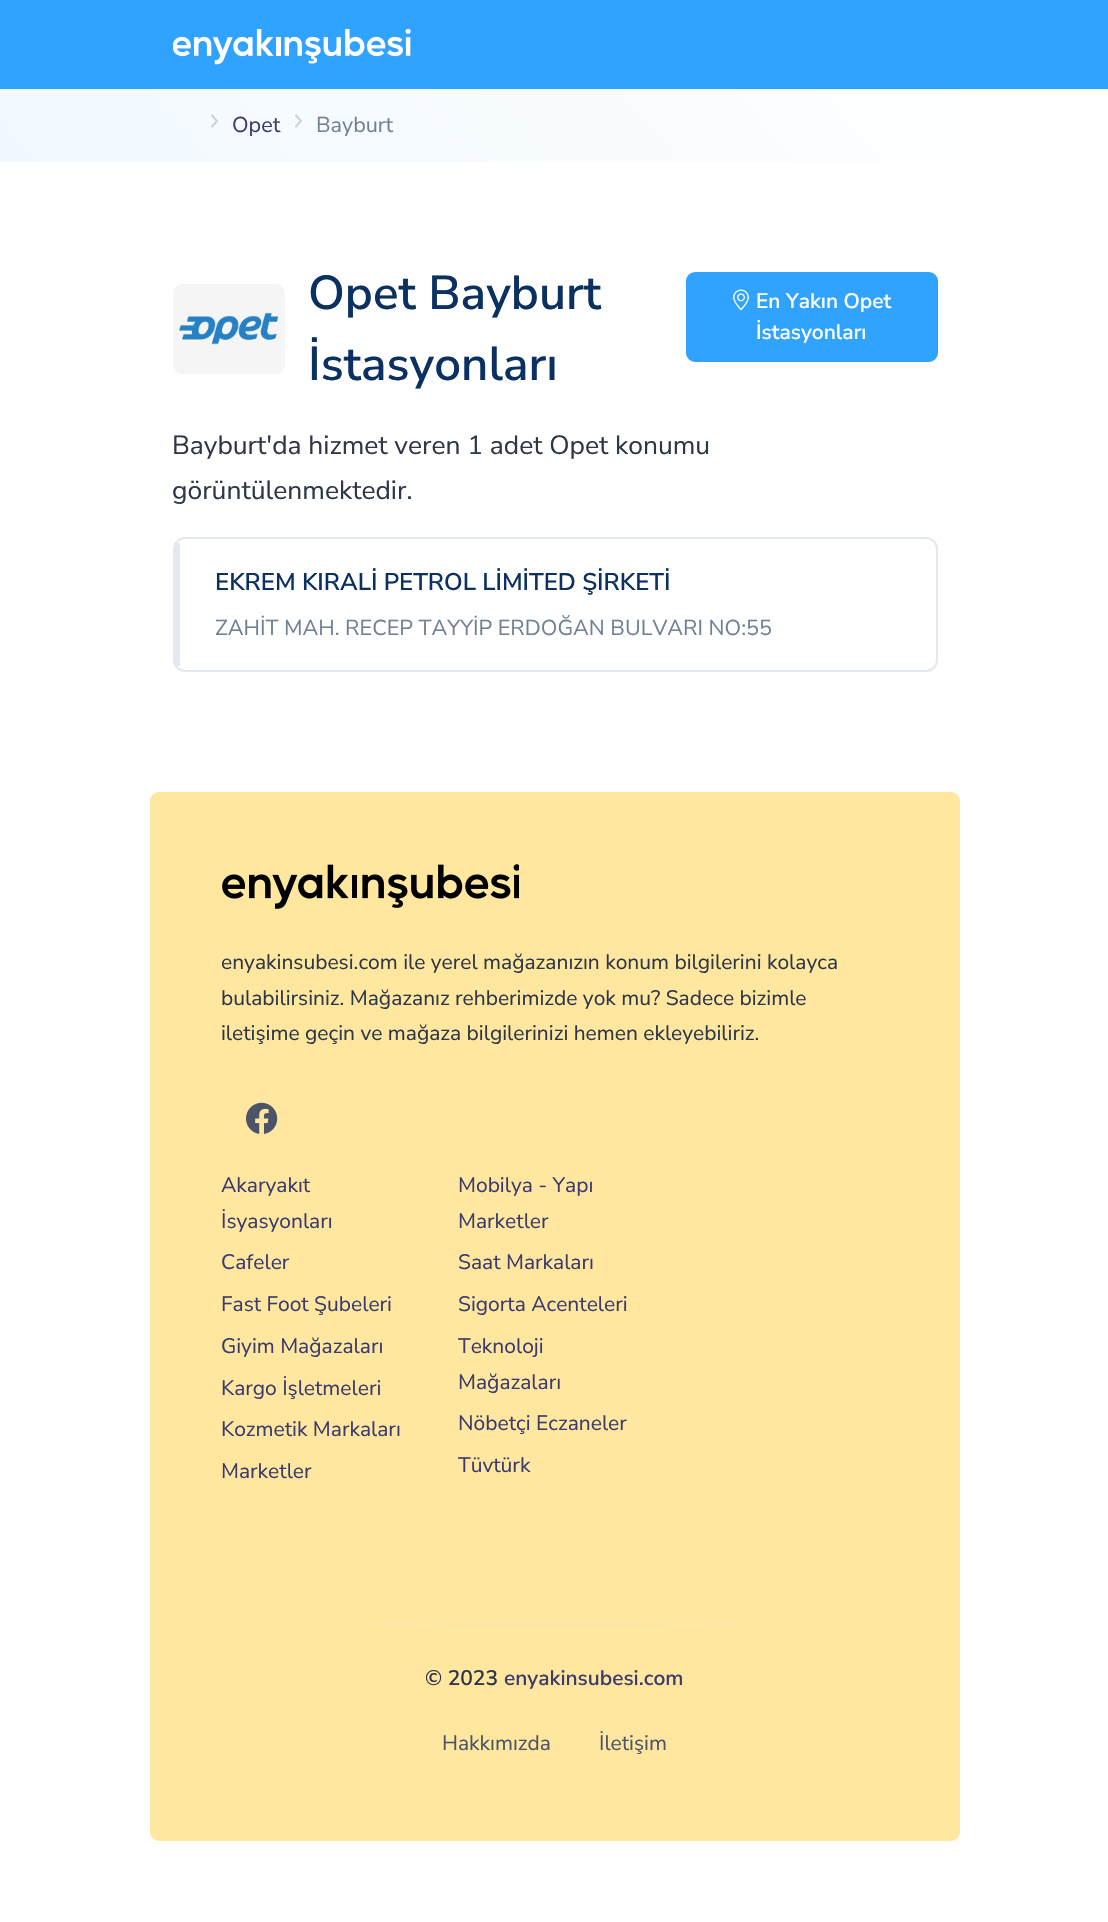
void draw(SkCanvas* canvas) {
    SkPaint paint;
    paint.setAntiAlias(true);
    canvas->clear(0xFFFFFFFF);
    paint.setColor(0xFF30A2FF);
    canvas->drawRect(SkRect::MakeXYWH(0, 0, 1108, 89), paint);
    canvas->drawImageRect(SkImages::DeferredFromEncodedData(SkData::MakeFromFileName("img1.png")), SkRect::MakeXYWH(173, 29, 238, 36), SkSamplingOptions());
    {
        const SkColor colors[] = {0xFFF1F9FF, 0xFFFFFFFF};
        const float stops[] = {0, 1};
        const SkPoint ends[] = {{211, 413}, {898, -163}};
        paint.setShader(SkGradientShader::MakeLinear(ends, colors, stops, 2, SkTileMode::kClamp));
        paint.setAlpha(255);
    }
    canvas->drawRect(SkRect::MakeXYWH(0, 89, 961, 73), paint);
    paint.setStyle(SkPaint::kStroke_Style);
    paint.setStrokeWidth(2.2f);
    paint.setStrokeCap(SkPaint::kRound_Cap);
    paint.setStrokeJoin(SkPaint::kRound_Join);
    paint.setShader(nullptr);
    paint.setColor(0xFFCBD5E0);
    canvas->drawPath(SkPathBuilder().moveTo(212, 126.5f).lineTo(217, 121).lineTo(212, 115.5f).detach(), paint);
    SkFont font1(fontMgr->matchFamilyStyle("Nunito Sans", SkFontStyle::Normal()), 21.6f);
    font1.setSubpixel(true);
    paint.setStyle(SkPaint::kFill_Style);
    paint.setColor(0xFF3B3B6E);
    canvas->drawString("Opet", 232, 132, font1, paint);
    paint.setStyle(SkPaint::kStroke_Style);
    paint.setColor(0xFFCBD5E0);
    canvas->drawPath(SkPathBuilder().moveTo(296, 126.5f).lineTo(301, 121).lineTo(296, 115.5f).detach(), paint);
    paint.setStyle(SkPaint::kFill_Style);
    paint.setColor(0xFF718096);
    canvas->drawString("Bayburt", 316, 132, font1, paint);
    paint.setColor(0xFFF5F5F5);
    canvas->drawRoundRect(SkRect::MakeXYWH(173, 284, 112, 90), 9, 9, paint);
    canvas->drawImageRect(SkImages::DeferredFromEncodedData(SkData::MakeFromFileName("img2.png")), SkRect::MakeXYWH(179, 312, 100, 33), SkSamplingOptions());
    SkFont font2(fontMgr->matchFamilyStyle("Nunito Sans", SkFontStyle(600, SkFontStyle::kNormal_Width, SkFontStyle::kUpright_Slant)), 47.5f);
    font2.setSubpixel(true);
    paint.setColor(0xFF0A3161);
    canvas->drawString("Opet Bayburt", 308, 309, font2, paint);
    canvas->drawString("İstasyonları", 308, 380, font2, paint);
    paint.setColor(0xFF30A2FF);
    canvas->drawRoundRect(SkRect::MakeXYWH(687, 273, 250, 88), 8, 8, paint);
    paint.setStyle(SkPaint::kStroke_Style);
    paint.setStrokeWidth(2);
    paint.setStrokeCap(SkPaint::kButt_Cap);
    paint.setStrokeJoin(SkPaint::kMiter_Join);
    canvas->drawRoundRect(SkRect::MakeXYWH(687, 273, 250, 88), 8, 8, paint);
    canvas->drawImageRect(SkImages::DeferredFromEncodedData(SkData::MakeFromFileName("img3.png")), SkRect::MakeXYWH(733, 289, 16, 22), SkSamplingOptions());
    SkFont font3(fontMgr->matchFamilyStyle("Nunito Sans", SkFontStyle(600, SkFontStyle::kNormal_Width, SkFontStyle::kUpright_Slant)), 21);
    font3.setSubpixel(true);
    paint.setStyle(SkPaint::kFill_Style);
    paint.setColor(0xFFFFFFFF);
    canvas->drawString("En Yakın Opet", 756, 308, font3, paint);
    canvas->drawString("İstasyonları", 756, 339, font3, paint);
    SkFont font4(fontMgr->matchFamilyStyle("Nunito Sans", SkFontStyle::Normal()), 26.4f);
    font4.setSubpixel(true);
    paint.setColor(0xFF2D3748);
    canvas->drawString("Bayburt'da hizmet veren 1 adet Opet konumu", 172, 454, font4, paint);
    canvas->drawString("görüntülenmektedir.", 172, 499, font4, paint);
    paint.setStyle(SkPaint::kStroke_Style);
    paint.setColor(0xFFE2E8F0);
    canvas->drawRoundRect(SkRect::MakeXYWH(174, 538, 763, 133), 11, 11, paint);
    paint.setStyle(SkPaint::kFill_Style);
    canvas->drawRect(SkRect::MakeXYWH(174, 543, 6, 123), paint);
    SkFont font5(fontMgr->matchFamilyStyle("Nunito Sans", SkFontStyle(600, SkFontStyle::kNormal_Width, SkFontStyle::kUpright_Slant)), 24);
    font5.setSubpixel(true);
    paint.setColor(0xFF0A3161);
    canvas->drawString("EKREM KIRALİ PETROL LİMİTED ŞİRKETİ", 215, 590, font5, paint);
    paint.setColor(0xFF718096);
    canvas->drawString("ZAHİT MAH. RECEP TAYYİP ERDOĞAN BULVARI NO:55", 215, 635, font1, paint);
    paint.setColor(0xFFFFE7A0);
    canvas->drawRoundRect(SkRect::MakeXYWH(150, 792, 810, 1049), 9, 9, paint);
    canvas->drawImageRect(SkImages::DeferredFromEncodedData(SkData::MakeFromFileName("img4.png")), SkRect::MakeXYWH(222, 864, 297, 45), SkSamplingOptions());
    SkFont font6(fontMgr->matchFamilyStyle("Nunito Sans", SkFontStyle::Normal()), 21);
    font6.setSubpixel(true);
    paint.setColor(0xFF2D3748);
    canvas->drawString("enyakinsubesi.com ile yerel mağazanızın konum bilgilerini kolayca", 221, 969, font6, paint);
    canvas->drawString("bulabilirsiniz. Mağazanız rehberimizde yok mu? Sadece bizimle", 221, 1005, font6, paint);
    canvas->drawString("iletişime geçin ve mağaza bilgilerinizi hemen ekleyebiliriz.", 221, 1040, font6, paint);
    canvas->drawImageRect(SkImages::DeferredFromEncodedData(SkData::MakeFromFileName("img5.png")), SkRect::MakeXYWH(246, 1102, 32, 32), SkSamplingOptions());
    paint.setColor(0xFF3B3B6E);
    canvas->drawString("Akaryakıt", 221, 1192, font6, paint);
    canvas->drawString("İsyasyonları", 221, 1228, font6, paint);
    canvas->drawString("Cafeler", 221, 1269, font6, paint);
    canvas->drawString("Fast Foot Şubeleri", 221, 1311, font6, paint);
    canvas->drawString("Giyim Mağazaları", 221, 1353, font6, paint);
    canvas->drawString("Kargo İşletmeleri", 221, 1395, font6, paint);
    canvas->drawString("Kozmetik Markaları", 221, 1436, font6, paint);
    canvas->drawString("Marketler", 221, 1478, font6, paint);
    canvas->drawString("Mobilya - Yapı", 458, 1192, font6, paint);
    canvas->drawString("Marketler", 458, 1228, font6, paint);
    canvas->drawString("Saat Markaları", 458, 1269, font6, paint);
    canvas->drawString("Sigorta Acenteleri", 458, 1311, font6, paint);
    canvas->drawString("Teknoloji", 458, 1353, font6, paint);
    canvas->drawString("Mağazaları", 458, 1389, font6, paint);
    canvas->drawString("Nöbetçi Eczaneler", 458, 1430, font6, paint);
    canvas->drawString("Tüvtürk", 458, 1472, font6, paint);
    {
        const SkColor colors[] = {0xFFD1DBE7, 0xFFFFE7A0};
        const float stops[] = {0, 0.75f};
        SkMatrix m = SkMatrix::Translate(555, 1625).preScale(377, 1.1f);
        paint.setShader(SkGradientShader::MakeRadial({0, 0}, 1, colors, stops, 2, SkTileMode::kClamp, 0, &m));
        paint.setAlpha(255);
    }
    canvas->drawRect(SkRect::MakeXYWH(343, 1625, 424, 1), paint);
    paint.setShader(nullptr);
    paint.setColor(0xFF2D3748);
    canvas->drawString("© 2023", 425, 1685, font3, paint);
    paint.setColor(0xFF3B3B6E);
    canvas->drawString("enyakinsubesi.com", 504, 1685, font3, paint);
    paint.setColor(0xFF4A5568);
    canvas->drawString("Hakkımızda", 442, 1750, font6, paint);
    canvas->drawString("İletişim", 599, 1750, font6, paint);
}
